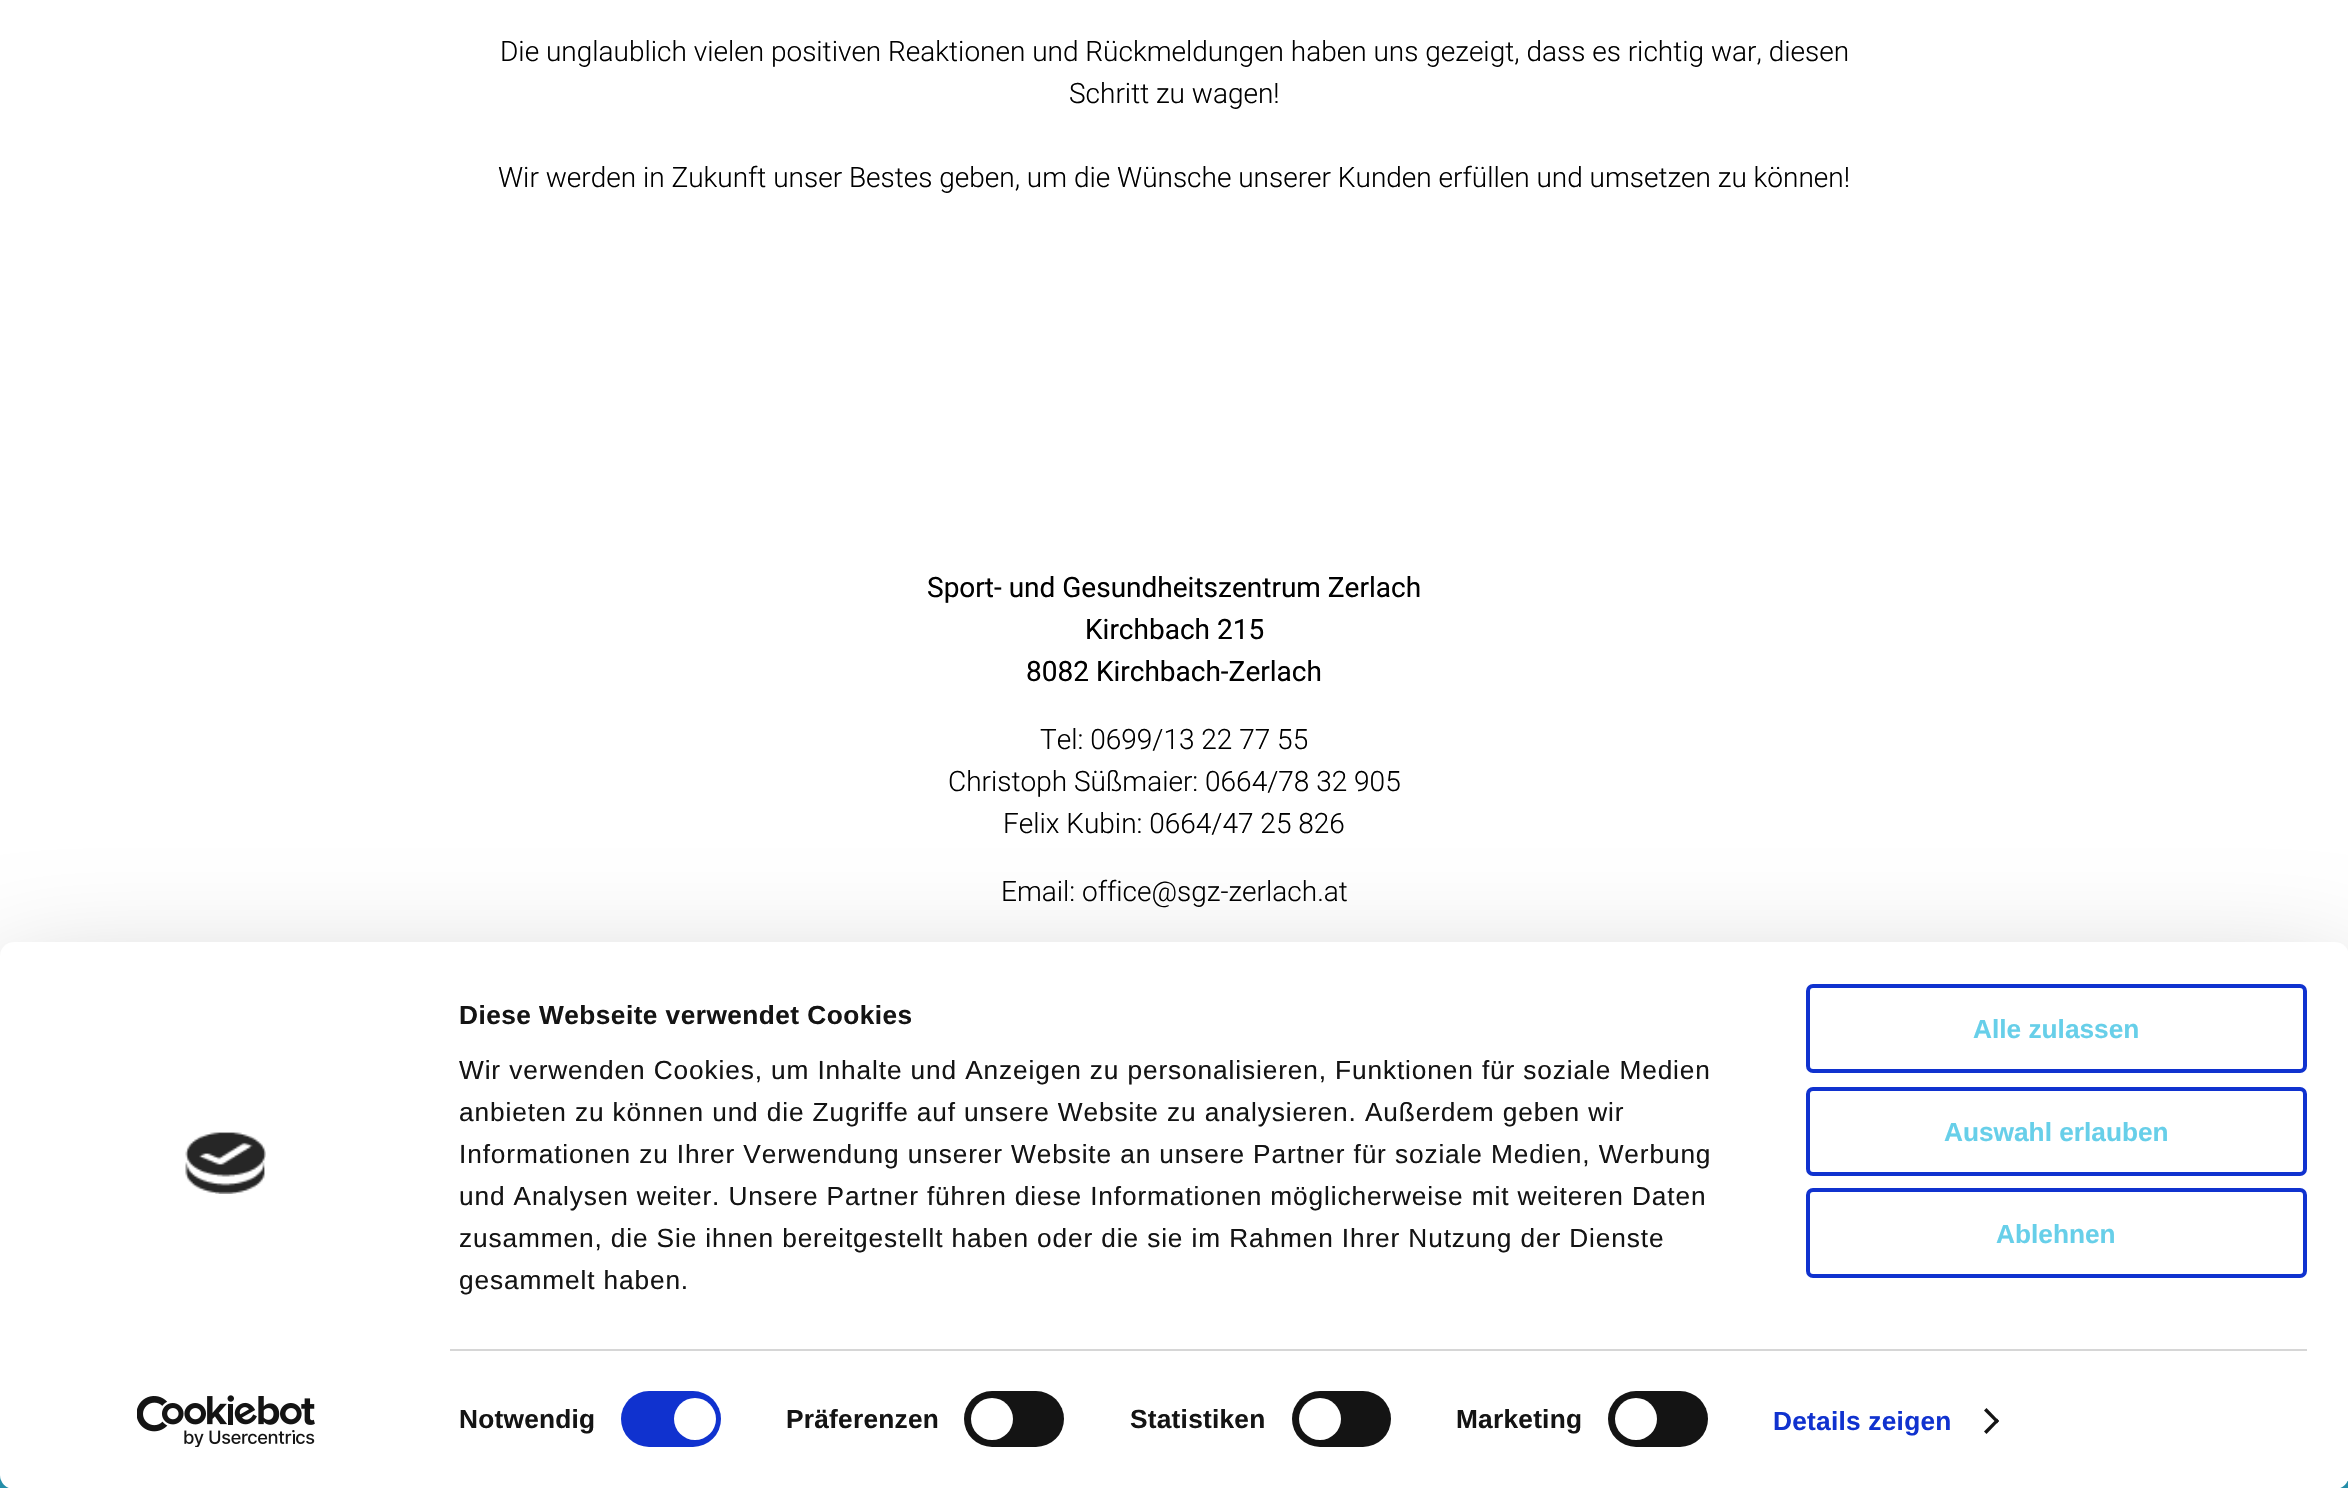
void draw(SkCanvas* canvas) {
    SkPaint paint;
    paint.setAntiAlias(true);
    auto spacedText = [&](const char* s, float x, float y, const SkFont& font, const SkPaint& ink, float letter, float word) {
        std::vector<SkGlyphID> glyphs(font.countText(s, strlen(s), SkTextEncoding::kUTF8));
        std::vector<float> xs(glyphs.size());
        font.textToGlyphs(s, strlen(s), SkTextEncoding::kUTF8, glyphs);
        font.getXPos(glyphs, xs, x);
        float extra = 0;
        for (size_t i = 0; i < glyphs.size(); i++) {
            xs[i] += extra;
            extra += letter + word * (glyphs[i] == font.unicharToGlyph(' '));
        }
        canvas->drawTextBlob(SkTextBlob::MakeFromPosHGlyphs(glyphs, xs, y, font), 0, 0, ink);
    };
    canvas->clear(0xFFFFFFFF);
    SkFont font1(fontMgr->matchFamilyStyle("Roboto", SkFontStyle(300, SkFontStyle::kNormal_Width, SkFontStyle::kUpright_Slant)), 28);
    font1.setSubpixel(true);
    paint.setColor(0xFF000000);
    canvas->drawString("Die unglaublich vielen positiven Reaktionen und Rückmeldungen haben uns gezeigt, dass es richtig war, diesen", 500, 61, font1, paint);
    canvas->drawString("Schritt zu wagen!", 1069, 103, font1, paint);
    canvas->drawString("Wir werden in Zukunft unser Bestes geben, um die Wünsche unserer Kunden erfüllen und umsetzen zu können!", 498, 187, font1, paint);
    SkFont font2(fontMgr->matchFamilyStyle("Roboto", SkFontStyle::Normal()), 28);
    font2.setSubpixel(true);
    canvas->drawString("Sport- und Gesundheitszentrum Zerlach", 927, 597, font2, paint);
    canvas->drawString("Kirchbach 215", 1085, 639, font2, paint);
    canvas->drawString("8082 Kirchbach-Zerlach", 1026, 681, font2, paint);
    canvas->drawString("Tel: 0699/13 22 77 55", 1040, 749, font1, paint);
    canvas->drawString("Christoph Süßmaier: 0664/78 32 905", 948, 791, font1, paint);
    canvas->drawString("Felix Kubin: 0664/47 25 826", 1003, 833, font1, paint);
    canvas->drawString("Email: office@sgz-zerlach.at", 1001, 901, font1, paint);
    paint.setColor(0xFF29A3C2);
    canvas->drawRect(SkRect::MakeXYWH(0, 1475, 2348, 13), paint);
    paint.setColor(0x4D000000);
    paint.setMaskFilter(SkMaskFilter::MakeBlur(kNormal_SkBlurStyle, 61));
    canvas->drawRoundRect(SkRect::MakeXYWH(0, 994, 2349, 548), 14, 14, paint);
    paint.setMaskFilter(nullptr);
    paint.setColor(0xFFFFFFFF);
    canvas->drawRoundRect(SkRect::MakeXYWH(0, 942, 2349, 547), 14, 14, paint);
    canvas->drawImageRect(SkImages::DeferredFromEncodedData(SkData::MakeFromFileName("img1.png")), SkRect::MakeXYWH(185, 1132, 81, 62), SkSamplingOptions());
    canvas->drawImageRect(SkImages::DeferredFromEncodedData(SkData::MakeFromFileName("img2.png")), SkRect::MakeXYWH(137, 1395, 178, 52), SkSamplingOptions());
    SkFont font3(fontMgr->matchFamilyStyle("Liberation Sans", SkFontStyle::Bold()), 26.25f);
    font3.setSubpixel(true);
    paint.setColor(0xFF141414);
    spacedText("Diese Webseite verwendet Cookies", 459, 1024, font3, paint, 0.45f, 0);
    SkFont font4(fontMgr->matchFamilyStyle("Liberation Sans", SkFontStyle::Normal()), 26.25f);
    font4.setSubpixel(true);
    spacedText("Wir verwenden Cookies, um Inhalte und Anzeigen zu personalisieren, Funktionen für soziale Medien", 459, 1079, font4, paint, 0.88f, 0);
    spacedText("anbieten zu können und die Zugriffe auf unsere Website zu analysieren. Außerdem geben wir", 459, 1121, font4, paint, 0.88f, 0);
    spacedText("Informationen zu Ihrer Verwendung unserer Website an unsere Partner für soziale Medien, Werbung", 459, 1163, font4, paint, 0.88f, 0);
    spacedText("und Analysen weiter. Unsere Partner führen diese Informationen möglicherweise mit weiteren Daten", 459, 1205, font4, paint, 0.88f, 0);
    spacedText("zusammen, die Sie ihnen bereitgestellt haben oder die sie im Rahmen Ihrer Nutzung der Dienste", 459, 1247, font4, paint, 0.88f, 0);
    spacedText("gesammelt haben.", 459, 1289, font4, paint, 0.88f, 0);
    paint.setColor(0xFFD6D6D6);
    canvas->drawRect(SkRect::MakeXYWH(450, 1349, 1857, 2), paint);
    paint.setColor(0xFF141414);
    spacedText("Notwendig", 459, 1428, font3, paint, 0.25f, 0);
    paint.setColor(0xFF1032CF);
    canvas->drawRoundRect(SkRect::MakeXYWH(621, 1391, 100, 56), 28, 28, paint);
    paint.setColor(0xFFFFFFFF);
    canvas->drawCircle(695, 1419, 21, paint);
    paint.setColor(0xFF141414);
    spacedText("Präferenzen", 786, 1428, font3, paint, 0.25f, 0);
    canvas->drawRoundRect(SkRect::MakeXYWH(964, 1391, 100, 56), 28, 28, paint);
    paint.setColor(0xFFFFFFFF);
    canvas->drawCircle(992, 1419, 21, paint);
    paint.setColor(0xFF141414);
    spacedText("Statistiken", 1130, 1428, font3, paint, 0.25f, 0);
    canvas->drawRoundRect(SkRect::MakeXYWH(1292, 1391, 99, 56), 28, 28, paint);
    paint.setColor(0xFFFFFFFF);
    canvas->drawCircle(1320, 1419, 21, paint);
    paint.setColor(0xFF141414);
    spacedText("Marketing", 1456, 1428, font3, paint, 0.25f, 0);
    canvas->drawRoundRect(SkRect::MakeXYWH(1608, 1391, 100, 56), 28, 28, paint);
    paint.setColor(0xFFFFFFFF);
    canvas->drawCircle(1636, 1419, 21, paint);
    paint.setColor(0xFF1032CF);
    spacedText("Details zeigen", 1773, 1430, font3, paint, 0.25f, 0);
    paint.setColor(0xFF141414);
    canvas->drawPath(SkPathBuilder().moveTo(1986.5f, 1408).lineTo(1999, 1421).lineTo(1997, 1423.5f).lineTo(1984, 1410.5f).close().detach(), paint);
    canvas->drawPath(SkPathBuilder().moveTo(1997, 1418.5f).lineTo(1999, 1421).lineTo(1986.5f, 1434).lineTo(1984, 1431.5f).close().detach(), paint);
    paint.setStyle(SkPaint::kStroke_Style);
    paint.setStrokeWidth(4);
    paint.setColor(0xFF1032CF);
    canvas->drawRoundRect(SkRect::MakeXYWH(1808, 986, 497, 85), 5, 5, paint);
    paint.setStyle(SkPaint::kFill_Style);
    paint.setColor(0xFF67CFE9);
    canvas->drawString("Alle zulassen", 1973, 1038, font3, paint);
    paint.setStyle(SkPaint::kStroke_Style);
    paint.setColor(0xFF1032CF);
    canvas->drawRoundRect(SkRect::MakeXYWH(1808, 1089, 497, 85), 5, 5, paint);
    paint.setStyle(SkPaint::kFill_Style);
    paint.setColor(0xFF67CFE9);
    canvas->drawString("Auswahl erlauben", 1944, 1141, font3, paint);
    paint.setStyle(SkPaint::kStroke_Style);
    paint.setColor(0xFF1032CF);
    canvas->drawRoundRect(SkRect::MakeXYWH(1808, 1190, 497, 86), 5, 5, paint);
    paint.setStyle(SkPaint::kFill_Style);
    paint.setColor(0xFF67CFE9);
    canvas->drawString("Ablehnen", 1996, 1243, font3, paint);
}
